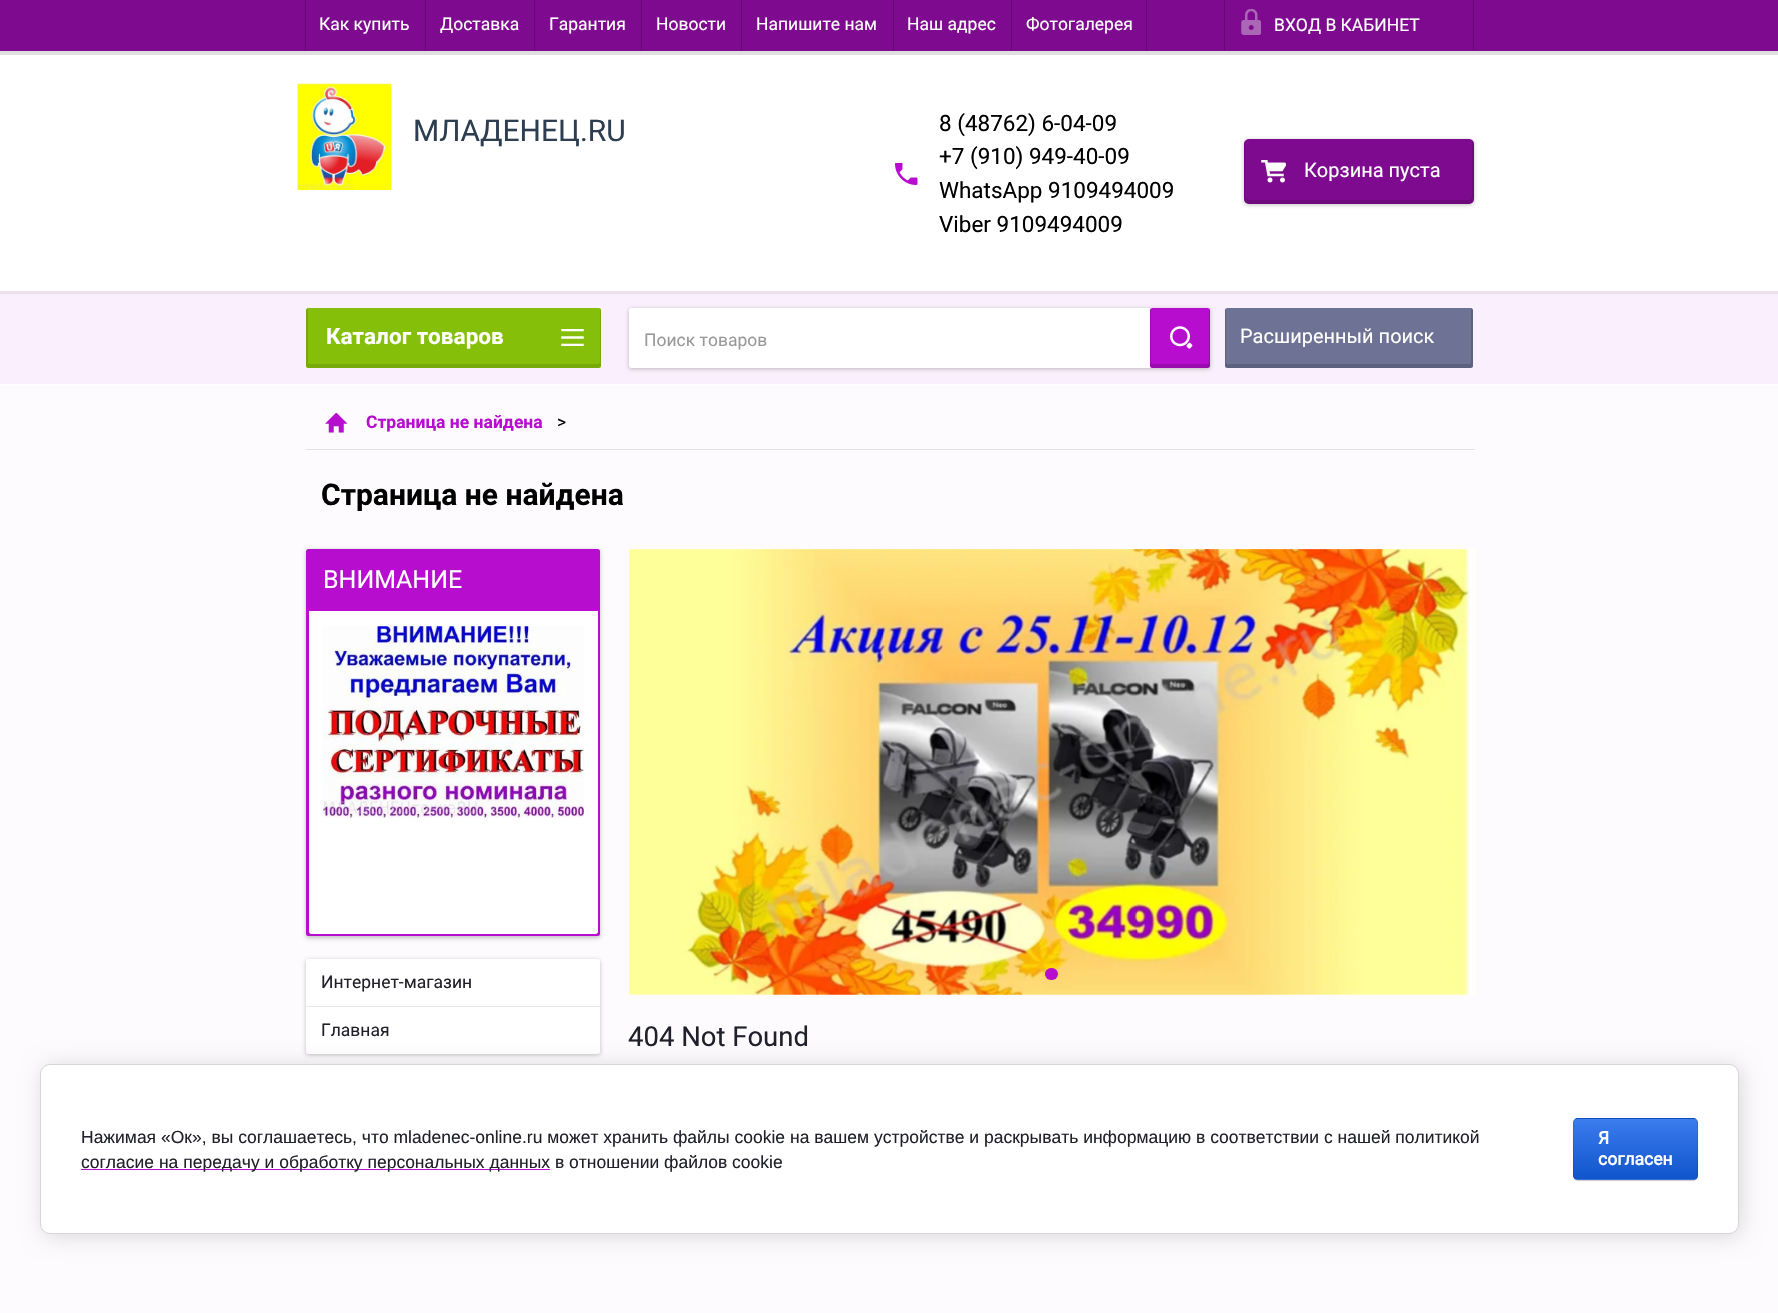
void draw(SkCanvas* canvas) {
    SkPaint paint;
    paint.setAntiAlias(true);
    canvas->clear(0xFFFEFBFF);
    paint.setColor(0xFFFFFFFF);
    canvas->drawRect(SkRect::MakeXYWH(0, 55, 1778, 236), paint);
    paint.setColor(0xFFE0E0E0);
    canvas->drawPath(SkPathBuilder().moveTo(0, 51).lineTo(0, 55).lineTo(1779, 55).lineTo(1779, 4).lineTo(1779, 51).close().detach(), paint);
    paint.setColor(0xFF7E0B8F);
    canvas->drawRect(SkRect::MakeXYWH(0, 0, 1778, 51), paint);
    paint.setColor(0xFF650972);
    canvas->drawRect(SkRect::MakeXYWH(305, 0, 1, 51), paint);
    SkFont font1(fontMgr->matchFamilyStyle("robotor", SkFontStyle::Normal()), 17.5f);
    font1.setSubpixel(true);
    paint.setColor(0xFFFFFFFF);
    canvas->drawString("Как купить", 319, 30, font1, paint);
    paint.setColor(0xFF650972);
    canvas->drawRect(SkRect::MakeXYWH(425, 0, 1, 51), paint);
    paint.setColor(0xFFFFFFFF);
    canvas->drawString("Доставка", 440, 30, font1, paint);
    paint.setColor(0xFF650972);
    canvas->drawRect(SkRect::MakeXYWH(534, 0, 1, 51), paint);
    paint.setColor(0xFFFFFFFF);
    canvas->drawString("Гарантия", 549, 30, font1, paint);
    paint.setColor(0xFF650972);
    canvas->drawRect(SkRect::MakeXYWH(641, 0, 1, 51), paint);
    paint.setColor(0xFFFFFFFF);
    canvas->drawString("Новости", 656, 30, font1, paint);
    paint.setColor(0xFF650972);
    canvas->drawRect(SkRect::MakeXYWH(741, 0, 1, 51), paint);
    paint.setColor(0xFFFFFFFF);
    canvas->drawString("Напишите нам", 756, 30, font1, paint);
    paint.setColor(0xFF650972);
    canvas->drawRect(SkRect::MakeXYWH(893, 0, 1, 51), paint);
    paint.setColor(0xFFFFFFFF);
    canvas->drawString("Наш адрес", 907, 30, font1, paint);
    paint.setColor(0xFF650972);
    canvas->drawRect(SkRect::MakeXYWH(1011, 0, 1, 51), paint);
    paint.setColor(0xFFFFFFFF);
    canvas->drawString("Фотогалерея", 1026, 30, font1, paint);
    paint.setColor(0xFF650972);
    canvas->drawRect(SkRect::MakeXYWH(1146, 0, 1, 51), paint);
    canvas->drawRect(SkRect::MakeXYWH(1224, 0, 1, 50), paint);
    canvas->drawImageRect(SkImages::DeferredFromEncodedData(SkData::MakeFromFileName("img1.png")), SkRect::MakeXYWH(1241, 9, 20, 26), SkSamplingOptions());
    paint.setColor(0xFFFFFFFF);
    canvas->drawString("ВХОД В КАБИНЕТ", 1274, 31, font1, paint);
    paint.setColor(0xFF650972);
    canvas->drawRect(SkRect::MakeXYWH(1473, 0, 1, 50), paint);
    canvas->drawImageRect(SkImages::DeferredFromEncodedData(SkData::MakeFromFileName("img2.png")), SkRect::MakeXYWH(297, 83, 95, 107), SkSamplingOptions());
    SkFont font2(fontMgr->matchFamilyStyle("robotor", SkFontStyle::Normal()), 30);
    font2.setSubpixel(true);
    paint.setColor(0xFF2C3E50);
    canvas->drawString("МЛАДЕНЕЦ.RU", 413, 141, font2, paint);
    SkFont font3(fontMgr->matchFamilyStyle("robotor", SkFontStyle::Normal()), 22.5f);
    font3.setSubpixel(true);
    paint.setColor(0xFF000000);
    canvas->drawString("8 (48762) 6-04-09", 939, 131, font3, paint);
    canvas->drawString("+7 (910) 949-40-09", 939, 164, font3, paint);
    canvas->drawImageRect(SkImages::DeferredFromEncodedData(SkData::MakeFromFileName("img3.png")), SkRect::MakeXYWH(895, 163, 23, 22), SkSamplingOptions());
    canvas->drawString("WhatsApp 9109494009", 939, 198, font3, paint);
    canvas->drawString("Viber 9109494009", 939, 232, font3, paint);
    paint.setColor(0x3D000000);
    paint.setMaskFilter(SkMaskFilter::MakeBlur(kNormal_SkBlurStyle, 2));
    canvas->drawRoundRect(SkRect::MakeXYWH(1244, 140, 230, 65), 5, 5, paint);
    paint.setMaskFilter(nullptr);
    paint.setColor(0xFF7E0B8F);
    canvas->drawRoundRect(SkRect::MakeXYWH(1244, 139, 230, 65), 5, 5, paint);
    paint.setColor(0x24000000);
    canvas->drawPath(SkPathBuilder().moveTo(1245, 141).cubicTo(1244, 142, 1244, 143, 1244, 144).lineTo(1244, 199).cubicTo(1244, 202, 1246, 204, 1249, 204).lineTo(1469, 204).cubicTo(1472, 204, 1474, 202, 1474, 199).lineTo(1474, 144).cubicTo(1474, 142, 1473, 141, 1472, 140).lineTo(1472, 196).cubicTo(1472, 198, 1471, 200, 1469, 200).lineTo(1249, 200).cubicTo(1247, 200, 1245, 198, 1245, 196).close().detach(), paint);
    canvas->drawImageRect(SkImages::DeferredFromEncodedData(SkData::MakeFromFileName("img4.png")), SkRect::MakeXYWH(1261, 160, 25, 23), SkSamplingOptions());
    SkFont font4(fontMgr->matchFamilyStyle("robotor", SkFontStyle::Normal()), 20);
    font4.setSubpixel(true);
    paint.setColor(0xFFFFFFFF);
    canvas->drawString("Корзина пуста", 1304, 177, font4, paint);
    canvas->drawPath(SkPathBuilder().moveTo(0, 384).lineTo(0, 385).lineTo(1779, 385).lineTo(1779, 293).lineTo(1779, 384).close().detach(), paint);
    paint.setColor(0xFFFAEFFC);
    canvas->drawRect(SkRect::MakeXYWH(0, 294, 1778, 90), paint);
    paint.setColor(0xFFEBE1ED);
    canvas->drawRect(SkRect::MakeXYWH(0, 291, 1778, 3), paint);
    paint.setColor(0x3D000000);
    paint.setMaskFilter(SkMaskFilter::MakeBlur(kNormal_SkBlurStyle, 2));
    canvas->drawRoundRect(SkRect::MakeXYWH(629, 309, 581, 60), 2.5f, 2.5f, paint);
    paint.setMaskFilter(nullptr);
    paint.setColor(0xFFFFFFFF);
    canvas->drawRoundRect(SkRect::MakeXYWH(629, 308, 581, 60), 2.5f, 2.5f, paint);
    paint.setColor(0xFF999999);
    canvas->drawString("Поиск товаров", 644, 346, font1, paint);
    paint.setColor(0xFFB60DCF);
    canvas->drawRoundRect(SkRect::MakeXYWH(1150, 308, 60, 60), 2.5f, 2.5f, paint);
    paint.setColor(0x29000000);
    canvas->drawPath(SkPathBuilder().moveTo(1151, 308).cubicTo(1150, 309, 1150, 310, 1150, 310).lineTo(1150, 366).cubicTo(1150, 367, 1151, 368, 1152, 368).lineTo(1208, 368).cubicTo(1209, 368, 1210, 367, 1210, 366).lineTo(1210, 310).cubicTo(1210, 310, 1210, 309, 1209, 308).lineTo(1209, 362).lineTo(1208, 364).lineTo(1152, 364).lineTo(1151, 362).close().detach(), paint);
    canvas->drawImageRect(SkImages::DeferredFromEncodedData(SkData::MakeFromFileName("img5.png")), SkRect::MakeXYWH(1170, 326, 23, 23), SkSamplingOptions());
    paint.setColor(0xFF6E7395);
    canvas->drawRoundRect(SkRect::MakeXYWH(1225, 308, 248, 60), 2.5f, 2.5f, paint);
    paint.setColor(0x29000000);
    canvas->drawPath(SkPathBuilder().moveTo(1226, 308).cubicTo(1225, 309, 1225, 310, 1225, 310).lineTo(1225, 366).cubicTo(1225, 367, 1226, 368, 1228, 368).lineTo(1470, 368).cubicTo(1472, 368, 1473, 367, 1473, 366).lineTo(1473, 310).cubicTo(1473, 309, 1472, 308, 1471, 308).lineTo(1471, 362).cubicTo(1471, 363, 1471, 364, 1470, 364).lineTo(1228, 364).cubicTo(1227, 364, 1226, 363, 1226, 362).close().detach(), paint);
    paint.setColor(0xFFFFFFFF);
    canvas->drawString("Расширенный поиск", 1240, 343, font4, paint);
    paint.setColor(0xFFE1E2E3);
    canvas->drawRect(SkRect::MakeXYWH(306, 449, 1169, 1), paint);
    canvas->drawImageRect(SkImages::DeferredFromEncodedData(SkData::MakeFromFileName("img6.png")), SkRect::MakeXYWH(325, 413, 23, 20), SkSamplingOptions());
    SkFont font5(fontMgr->matchFamilyStyle("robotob", SkFontStyle::Bold()), 17.5f);
    font5.setSubpixel(true);
    paint.setColor(0xFFB60DCF);
    canvas->drawString("Страница не найдена", 366, 428, font5, paint);
    paint.setColor(0xFF000000);
    canvas->drawString(">", 557, 428, font1, paint);
    SkFont font6(fontMgr->matchFamilyStyle("robotob", SkFontStyle::Bold()), 30);
    font6.setSubpixel(true);
    canvas->drawString("Страница не найдена", 321, 505, font6, paint);
    paint.setColor(0xFFFFFFFF);
    canvas->drawRect(SkRect::MakeXYWH(629, 549, 846, 446), paint);
    canvas->drawImageRect(SkImages::DeferredFromEncodedData(SkData::MakeFromFileName("img7.png")), SkRect::MakeXYWH(629, 549, 842, 446), SkSamplingOptions());
    canvas->drawImageRect(SkImages::DeferredFromEncodedData(SkData::MakeFromFileName("img8.png")), SkRect::MakeXYWH(1474, 549, 1, 446), SkSamplingOptions());
    paint.setColor(0xFFB60DCF);
    canvas->drawRoundRect(SkRect::MakeXYWH(1045, 968, 13, 12), 6, 6, paint);
    SkFont font7(fontMgr->matchFamilyStyle("robotor", SkFontStyle::Normal()), 27.5f);
    font7.setSubpixel(true);
    paint.setColor(0xFF20202A);
    canvas->drawString("404 Not Found", 628, 1046, font7, paint);
    paint.setColor(0xFF85BF0A);
    canvas->drawRoundRect(SkRect::MakeXYWH(306, 308, 295, 60), 2.5f, 2.5f, paint);
    paint.setColor(0x1C000000);
    canvas->drawPath(SkPathBuilder().moveTo(308, 308).cubicTo(307, 308, 306, 309, 306, 310).lineTo(306, 366).cubicTo(306, 367, 307, 368, 308, 368).lineTo(598, 368).cubicTo(600, 368, 601, 367, 601, 366).lineTo(601, 310).cubicTo(601, 310, 601, 309, 600, 308).lineTo(600, 362).lineTo(599, 364).lineTo(309, 364).cubicTo(308, 364, 308, 363, 308, 362).close().detach(), paint);
    SkFont font8(fontMgr->matchFamilyStyle("robotob", SkFontStyle::Bold()), 22.5f);
    font8.setSubpixel(true);
    paint.setColor(0xFFFFFFFF);
    canvas->drawString("Каталог товаров", 326, 344, font8, paint);
    canvas->drawImageRect(SkImages::DeferredFromEncodedData(SkData::MakeFromFileName("img9.png")), SkRect::MakeXYWH(561, 329, 23, 17), SkSamplingOptions());
    paint.setColor(0x3D000000);
    paint.setMaskFilter(SkMaskFilter::MakeBlur(kNormal_SkBlurStyle, 2));
    canvas->drawRoundRect(SkRect::MakeXYWH(306, 550, 294, 388), 2.5f, 2.5f, paint);
    paint.setMaskFilter(nullptr);
    paint.setColor(0xFFB60DCF);
    canvas->drawRoundRect(SkRect::MakeXYWH(306, 549, 294, 387), 2.5f, 2.5f, paint);
    SkFont font9(fontMgr->matchFamilyStyle("robotor", SkFontStyle::Normal()), 25);
    font9.setSubpixel(true);
    paint.setColor(0xFFFFFFFF);
    canvas->drawString("ВНИМАНИЕ", 323, 588, font9, paint);
    canvas->drawPath(SkPathBuilder().moveTo(309, 611).lineTo(598, 611).lineTo(598, 931.5f).cubicTo(598, 933, 597, 934, 595.5f, 934).lineTo(311.5f, 934).cubicTo(310, 934, 309, 933, 309, 931.5f).close().detach(), paint);
    canvas->drawImageRect(SkImages::DeferredFromEncodedData(SkData::MakeFromFileName("img10.png")), SkRect::MakeXYWH(322, 626, 262, 192), SkSamplingOptions());
    paint.setColor(0x3D000000);
    paint.setMaskFilter(SkMaskFilter::MakeBlur(kNormal_SkBlurStyle, 2));
    canvas->drawRoundRect(SkRect::MakeXYWH(306, 960, 294, 95), 2.5f, 2.5f, paint);
    paint.setMaskFilter(nullptr);
    paint.setColor(0xFFFFFFFF);
    canvas->drawRoundRect(SkRect::MakeXYWH(306, 959, 294, 95), 2.5f, 2.5f, paint);
    paint.setColor(0xFF20202A);
    canvas->drawString("Интернет-магазин", 321, 988, font1, paint);
    paint.setColor(0xFFE6E6E6);
    canvas->drawRect(SkRect::MakeXYWH(306, 1006, 294, 1), paint);
    paint.setColor(0xFF20202A);
    canvas->drawString("Главная", 321, 1036, font1, paint);
    paint.setColor(0x24000000);
    paint.setMaskFilter(SkMaskFilter::MakeBlur(kNormal_SkBlurStyle, 11));
    canvas->drawRoundRect(SkRect::MakeXYWH(43, 1066, 1698, 170), 10, 10, paint);
    paint.setMaskFilter(nullptr);
    paint.setColor(0xFFFFFFFF);
    canvas->drawRoundRect(SkRect::MakeXYWH(40.5f, 1064.5f, 1698, 169), 9.5f, 9.5f, paint);
    paint.setStyle(SkPaint::kStroke_Style);
    paint.setStrokeWidth(1);
    paint.setColor(0xFFD6D6D6);
    canvas->drawRoundRect(SkRect::MakeXYWH(40.5f, 1064.5f, 1698, 169), 9.5f, 9.5f, paint);
    SkFont font10(fontMgr->matchFamilyStyle("Liberation Sans", SkFontStyle::Normal()), 17.5f);
    font10.setSubpixel(true);
    paint.setStyle(SkPaint::kFill_Style);
    paint.setColor(0xFF20202A);
    canvas->drawString("Нажимая «Ок», вы соглашаетесь, что mladenec-online.ru может хранить файлы cookie на вашем устройстве и раскрывать информацию в соответствии с нашей политикой", 81, 1143, font10, paint);
    paint.setColor(0xFFB60DCF);
    canvas->drawRect(SkRect::MakeXYWH(81, 1169, 469, 1), paint);
    paint.setColor(0xFF20202A);
    canvas->drawString("согласие на передачу и обработку персональных данных в отношении файлов cookie", 81, 1168, font10, paint);
    paint.setColor(0x33000000);
    paint.setMaskFilter(SkMaskFilter::MakeBlur(kNormal_SkBlurStyle, 0.5f));
    canvas->drawRoundRect(SkRect::MakeXYWH(1573, 1119, 125, 62), 5, 5, paint);
    paint.setMaskFilter(nullptr);
    canvas->save();
    canvas->clipPath(SkPathBuilder().moveTo(1578, 1118).lineTo(1693, 1118).cubicTo(1696, 1118, 1698, 1120, 1698, 1123).lineTo(1698, 1175).cubicTo(1698, 1178, 1696, 1180, 1693, 1180).lineTo(1578, 1180).cubicTo(1575, 1180, 1573, 1178, 1573, 1175).lineTo(1573, 1123).cubicTo(1573, 1120, 1575, 1118, 1578, 1118).close().detach(), true);
    {
        const SkColor colors[] = {0xFF3B7CEF, 0xFF1155CC};
        const float stops[] = {0, 1};
        const SkPoint ends[] = {{1635, 1059}, {1635, 1119}};
        paint.setShader(SkGradientShader::MakeLinear(ends, colors, stops, 2, SkTileMode::kClamp));
        paint.setAlpha(255);
    }
    canvas->drawRect(SkRect::MakeXYWH(1573, 1118, 125, 1), paint);
    {
        const SkColor colors[] = {0xFF3B7CEF, 0xFF1155CC};
        const float stops[] = {0, 1};
        const SkPoint ends[] = {{1635, 1119}, {1635, 1179}};
        paint.setShader(SkGradientShader::MakeLinear(ends, colors, stops, 2, SkTileMode::kClamp));
        paint.setAlpha(255);
    }
    canvas->drawRect(SkRect::MakeXYWH(1573, 1119, 125, 60), paint);
    {
        const SkColor colors[] = {0xFF3B7CEF, 0xFF1155CC};
        const float stops[] = {0, 1};
        const SkPoint ends[] = {{1635, 1179}, {1635, 1239}};
        paint.setShader(SkGradientShader::MakeLinear(ends, colors, stops, 2, SkTileMode::kClamp));
        paint.setAlpha(255);
    }
    canvas->drawRect(SkRect::MakeXYWH(1573, 1179, 125, 1), paint);
    canvas->restore();
    paint.setStyle(SkPaint::kStroke_Style);
    paint.setShader(nullptr);
    paint.setColor(0x1A000000);
    canvas->drawRoundRect(SkRect::MakeXYWH(1573.5f, 1118.5f, 124, 61), 4.5f, 4.5f, paint);
    SkFont font11(fontMgr->matchFamilyStyle("robotor", SkFontStyle::Bold()), 17.5f);
    font11.setSubpixel(true);
    paint.setStyle(SkPaint::kFill_Style);
    paint.setColor(0xFFFFFFFF);
    canvas->drawString("Я", 1598, 1144, font11, paint);
    canvas->drawString("согласен", 1598, 1165, font11, paint);
}
